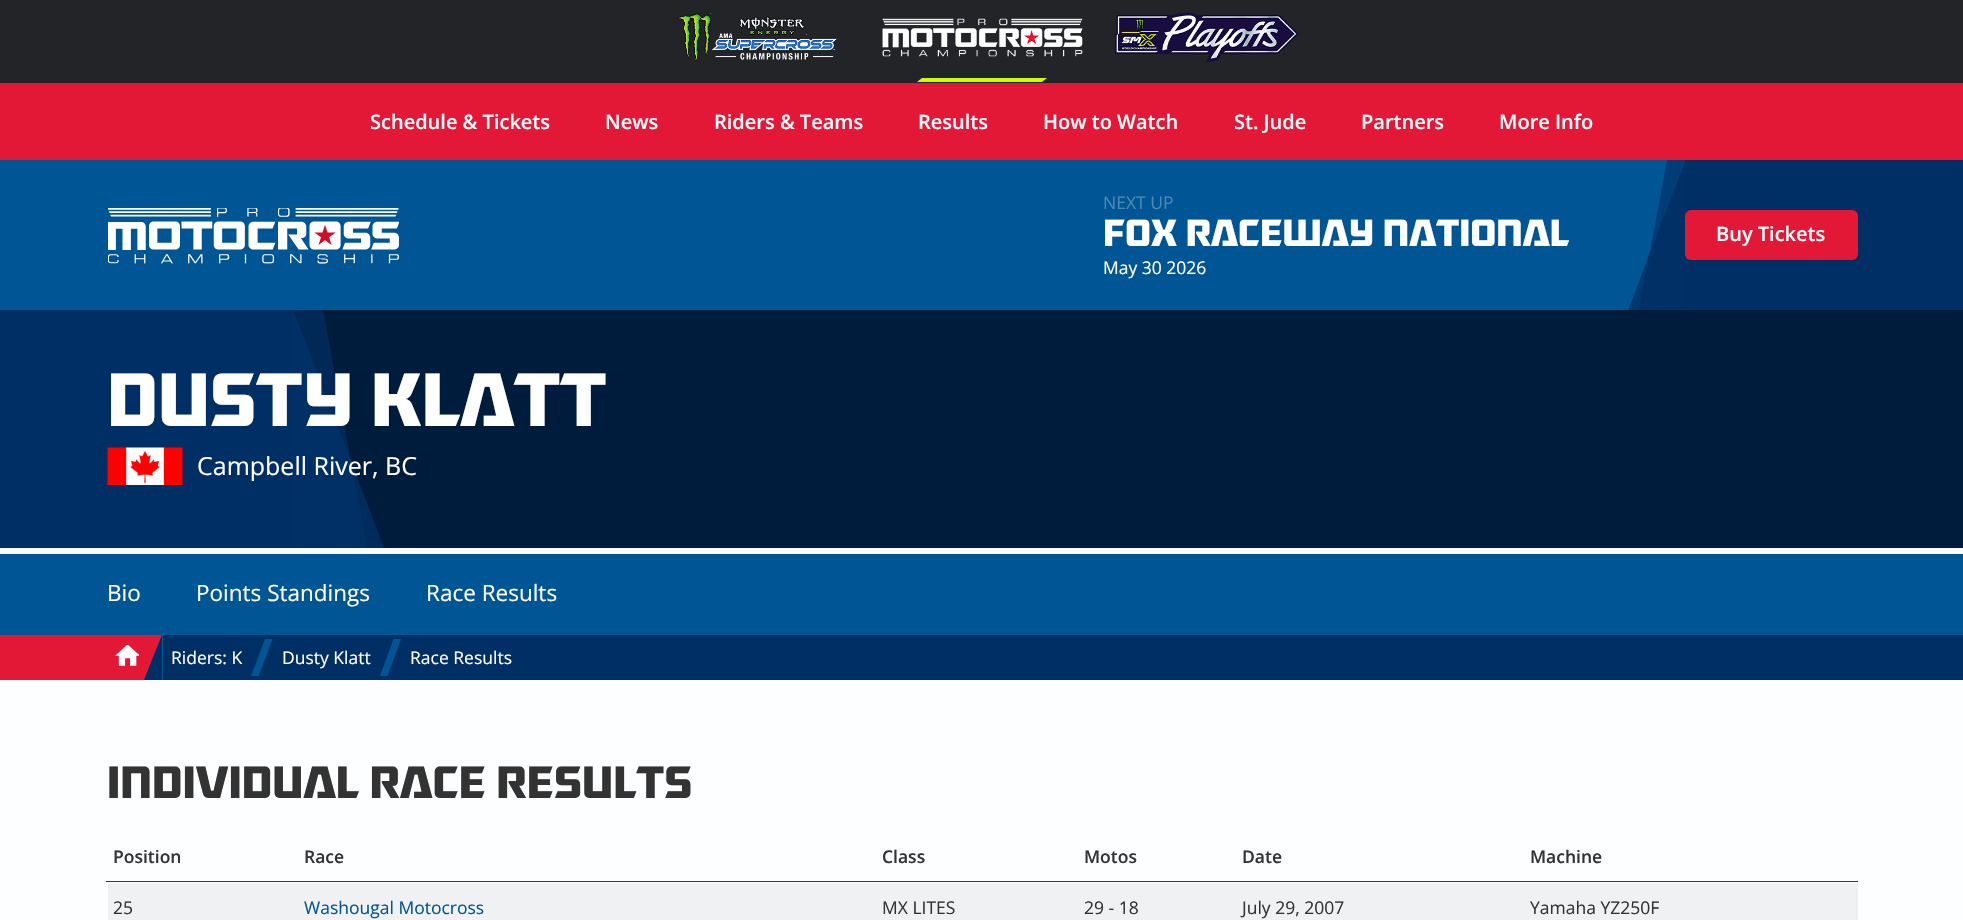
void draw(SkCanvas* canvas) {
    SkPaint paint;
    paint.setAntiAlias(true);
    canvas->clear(0xFFFDFEFF);
    paint.setColor(0xFF222428);
    canvas->drawRect(SkRect::MakeXYWH(0, 0, 1963, 83), paint);
    canvas->drawImageRect(SkImages::DeferredFromEncodedData(SkData::MakeFromFileName("img1.png")), SkRect::MakeXYWH(677, 13, 160, 48), SkSamplingOptions());
    canvas->drawImageRect(SkImages::DeferredFromEncodedData(SkData::MakeFromFileName("img2.png")), SkRect::MakeXYWH(882, 18, 201, 39), SkSamplingOptions());
    paint.setColor(0xFFCEFF00);
    canvas->drawPath(SkPathBuilder().moveTo(922, 78).lineTo(1047, 78).lineTo(1042, 82).lineTo(917, 82).close().detach(), paint);
    canvas->drawImageRect(SkImages::DeferredFromEncodedData(SkData::MakeFromFileName("img3.png")), SkRect::MakeXYWH(1115, 12, 184, 51), SkSamplingOptions());
    paint.setColor(0xFFE31837);
    canvas->drawRect(SkRect::MakeXYWH(0, 83, 1963, 77), paint);
    SkFont font1(fontMgr->matchFamilyStyle("Open Sans", SkFontStyle(600, SkFontStyle::kNormal_Width, SkFontStyle::kUpright_Slant)), 20);
    font1.setSubpixel(true);
    paint.setColor(0xFFFFFFFF);
    canvas->drawString("Schedule & Tickets", 370, 129, font1, paint);
    canvas->drawString("News", 605, 129, font1, paint);
    canvas->drawString("Riders & Teams", 714, 129, font1, paint);
    canvas->drawString("Results", 918, 129, font1, paint);
    canvas->drawString("How to Watch", 1043, 129, font1, paint);
    canvas->drawString("St. Jude", 1234, 129, font1, paint);
    canvas->drawString("Partners", 1361, 129, font1, paint);
    canvas->drawString("More Info", 1499, 129, font1, paint);
    paint.setColor(0xFF005695);
    canvas->drawRect(SkRect::MakeXYWH(0, 160, 1685, 150), paint);
    canvas->drawImageRect(SkImages::DeferredFromEncodedData(SkData::MakeFromFileName("img4.png")), SkRect::MakeXYWH(108, 208, 291, 56), SkSamplingOptions());
    SkFont font2(fontMgr->matchFamilyStyle("Open Sans", SkFontStyle::Normal()), 17.5f);
    font2.setSubpixel(true);
    paint.setColor(0xFF4D89B5);
    canvas->drawString("NEXT UP", 1103, 209, font2, paint);
    SkFont font3(fontMgr->matchFamilyStyle("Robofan", SkFontStyle::Bold()), 37.5f);
    font3.setSubpixel(true);
    paint.setColor(0xFFFFFFFF);
    canvas->drawString("FOX RACEWAY NATIONAL", 1103, 246, font3, paint);
    canvas->drawString("May 30 2026", 1103, 274, font2, paint);
    paint.setColor(0xFF002F65);
    canvas->drawRect(SkRect::MakeXYWH(1685, 160, 278, 150), paint);
    canvas->save();
    canvas->clipRect(SkRect::MakeXYWH(1628, 160, 58, 150));
    canvas->drawPath(SkPathBuilder().moveTo(1686, 311).lineTo(1686, 160).lineTo(1649, 255).lineTo(1639, 311).close().detach(), paint);
    paint.setColor(0xA6002F65);
    canvas->drawPath(SkPathBuilder().moveTo(1667, 160).lineTo(1639, 311).lineTo(1686, 311).lineTo(1686, 160).close().detach(), paint);
    paint.setColor(0xCC002F65);
    canvas->drawPath(SkPathBuilder().moveTo(1649, 255).lineTo(1628, 311).lineTo(1686, 311).lineTo(1686, 160).close().detach(), paint);
    canvas->restore();
    paint.setColor(0xFFE31837);
    canvas->drawRoundRect(SkRect::MakeXYWH(1685, 210, 173, 50), 6, 6, paint);
    paint.setColor(0xFFFFFFFF);
    canvas->drawString("Buy Tickets", 1716, 241, font1, paint);
    paint.setColor(0xFF001C3C);
    canvas->drawRect(SkRect::MakeXYWH(295, 310, 1668, 238), paint);
    paint.setColor(0xFF002F65);
    canvas->drawRect(SkRect::MakeXYWH(0, 310, 295, 238), paint);
    canvas->drawPath(SkPathBuilder().moveTo(293, 548).lineTo(293, 310).lineTo(350, 459).lineTo(367, 548).close().detach(), paint);
    paint.setColor(0xA6002F65);
    canvas->drawPath(SkPathBuilder().moveTo(323, 310).lineTo(367, 548).lineTo(293, 548).lineTo(293, 310).close().detach(), paint);
    paint.setColor(0xCC002F65);
    canvas->drawPath(SkPathBuilder().moveTo(350, 459).lineTo(384, 548).lineTo(293, 548).lineTo(293, 310).close().detach(), paint);
    SkFont font4(fontMgr->matchFamilyStyle("Robofan", SkFontStyle::Bold()), 75);
    font4.setSubpixel(true);
    paint.setColor(0xFFFFFFFF);
    canvas->drawString("DUSTY KLATT", 107, 426, font4, paint);
    canvas->drawImageRect(SkImages::DeferredFromEncodedData(SkData::MakeFromFileName("img5.png")), SkRect::MakeXYWH(107, 447, 76, 38), SkSamplingOptions());
    SkFont font5(fontMgr->matchFamilyStyle("Open Sans", SkFontStyle::Normal()), 25);
    font5.setSubpixel(true);
    canvas->drawString("Campbell River, BC", 197, 475, font5, paint);
    paint.setColor(0xFF005695);
    canvas->drawRect(SkRect::MakeXYWH(0, 554, 1963, 81), paint);
    SkFont font6(fontMgr->matchFamilyStyle("Open Sans", SkFontStyle::Normal()), 22.5f);
    font6.setSubpixel(true);
    paint.setColor(0xFFFFFFFF);
    canvas->drawString("Bio", 107, 601, font6, paint);
    canvas->drawString("Points Standings", 196, 601, font6, paint);
    canvas->drawString("Race Results", 426, 601, font6, paint);
    paint.setColor(0xFF002F65);
    canvas->drawRect(SkRect::MakeXYWH(163, 635, 1800, 45), paint);
    paint.setColor(0xFFE31837);
    canvas->drawRect(SkRect::MakeXYWH(0, 635, 144, 45), paint);
    paint.setColor(0xFF005695);
    canvas->drawRect(SkRect::MakeXYWH(144, 635, 19, 45), paint);
    paint.setColor(0xFFE31837);
    canvas->drawPath(SkPathBuilder().moveTo(144, 635).lineTo(162, 635).lineTo(144, 680).close().detach(), paint);
    paint.setColor(0xFF002F65);
    canvas->drawPath(SkPathBuilder().moveTo(162, 635).lineTo(162, 680).lineTo(144, 680).close().detach(), paint);
    canvas->drawImageRect(SkImages::DeferredFromEncodedData(SkData::MakeFromFileName("img6.png")), SkRect::MakeXYWH(115, 645, 24, 21), SkSamplingOptions());
    paint.setColor(0xFFFFFFFF);
    canvas->drawString("Riders: K", 171, 664, font2, paint);
    paint.setColor(0xFF005695);
    canvas->drawPath(SkPathBuilder().moveTo(265, 639).lineTo(272.5f, 639).lineTo(258.5f, 676).lineTo(251, 676).close().detach(), paint);
    paint.setColor(0xFFFFFFFF);
    canvas->drawString("Dusty Klatt", 282, 664, font2, paint);
    paint.setColor(0xFF005695);
    canvas->drawPath(SkPathBuilder().moveTo(393.5f, 639).lineTo(401, 639).lineTo(387.5f, 676).lineTo(380, 676).close().detach(), paint);
    paint.setColor(0xFFFFFFFF);
    canvas->drawString("Race Results", 410, 664, font2, paint);
    SkFont font7(fontMgr->matchFamilyStyle("Robofan", SkFontStyle::Bold()), 45);
    font7.setSubpixel(true);
    paint.setColor(0xFF333333);
    canvas->drawString("INDIVIDUAL RACE RESULTS", 107, 798, font7, paint);
    SkFont font8(fontMgr->matchFamilyStyle("Open Sans", SkFontStyle(600, SkFontStyle::kNormal_Width, SkFontStyle::kUpright_Slant)), 17.5f);
    font8.setSubpixel(true);
    canvas->drawString("Position", 113, 863, font8, paint);
    canvas->drawString("Race", 304, 863, font8, paint);
    canvas->drawString("Class", 882, 863, font8, paint);
    canvas->drawString("Motos", 1084, 863, font8, paint);
    canvas->drawString("Date", 1242, 863, font8, paint);
    canvas->drawRect(SkRect::MakeXYWH(106, 881, 1752, 1), paint);
    canvas->drawString("Machine", 1530, 863, font8, paint);
    paint.setColor(0xFFF0F1F2);
    canvas->drawRect(SkRect::MakeXYWH(108, 883, 1750, 37), paint);
    paint.setColor(0xFF333333);
    canvas->drawString("25", 113, 914, font2, paint);
    paint.setColor(0xFF005695);
    canvas->drawString("Washougal Motocross", 304, 914, font2, paint);
    paint.setColor(0xFF333333);
    canvas->drawString("MX LITES", 882, 914, font2, paint);
    canvas->drawString("29 - 18", 1084, 914, font2, paint);
    canvas->drawString("July 29, 2007", 1242, 914, font2, paint);
    canvas->drawString("Yamaha YZ250F", 1530, 914, font2, paint);
}
